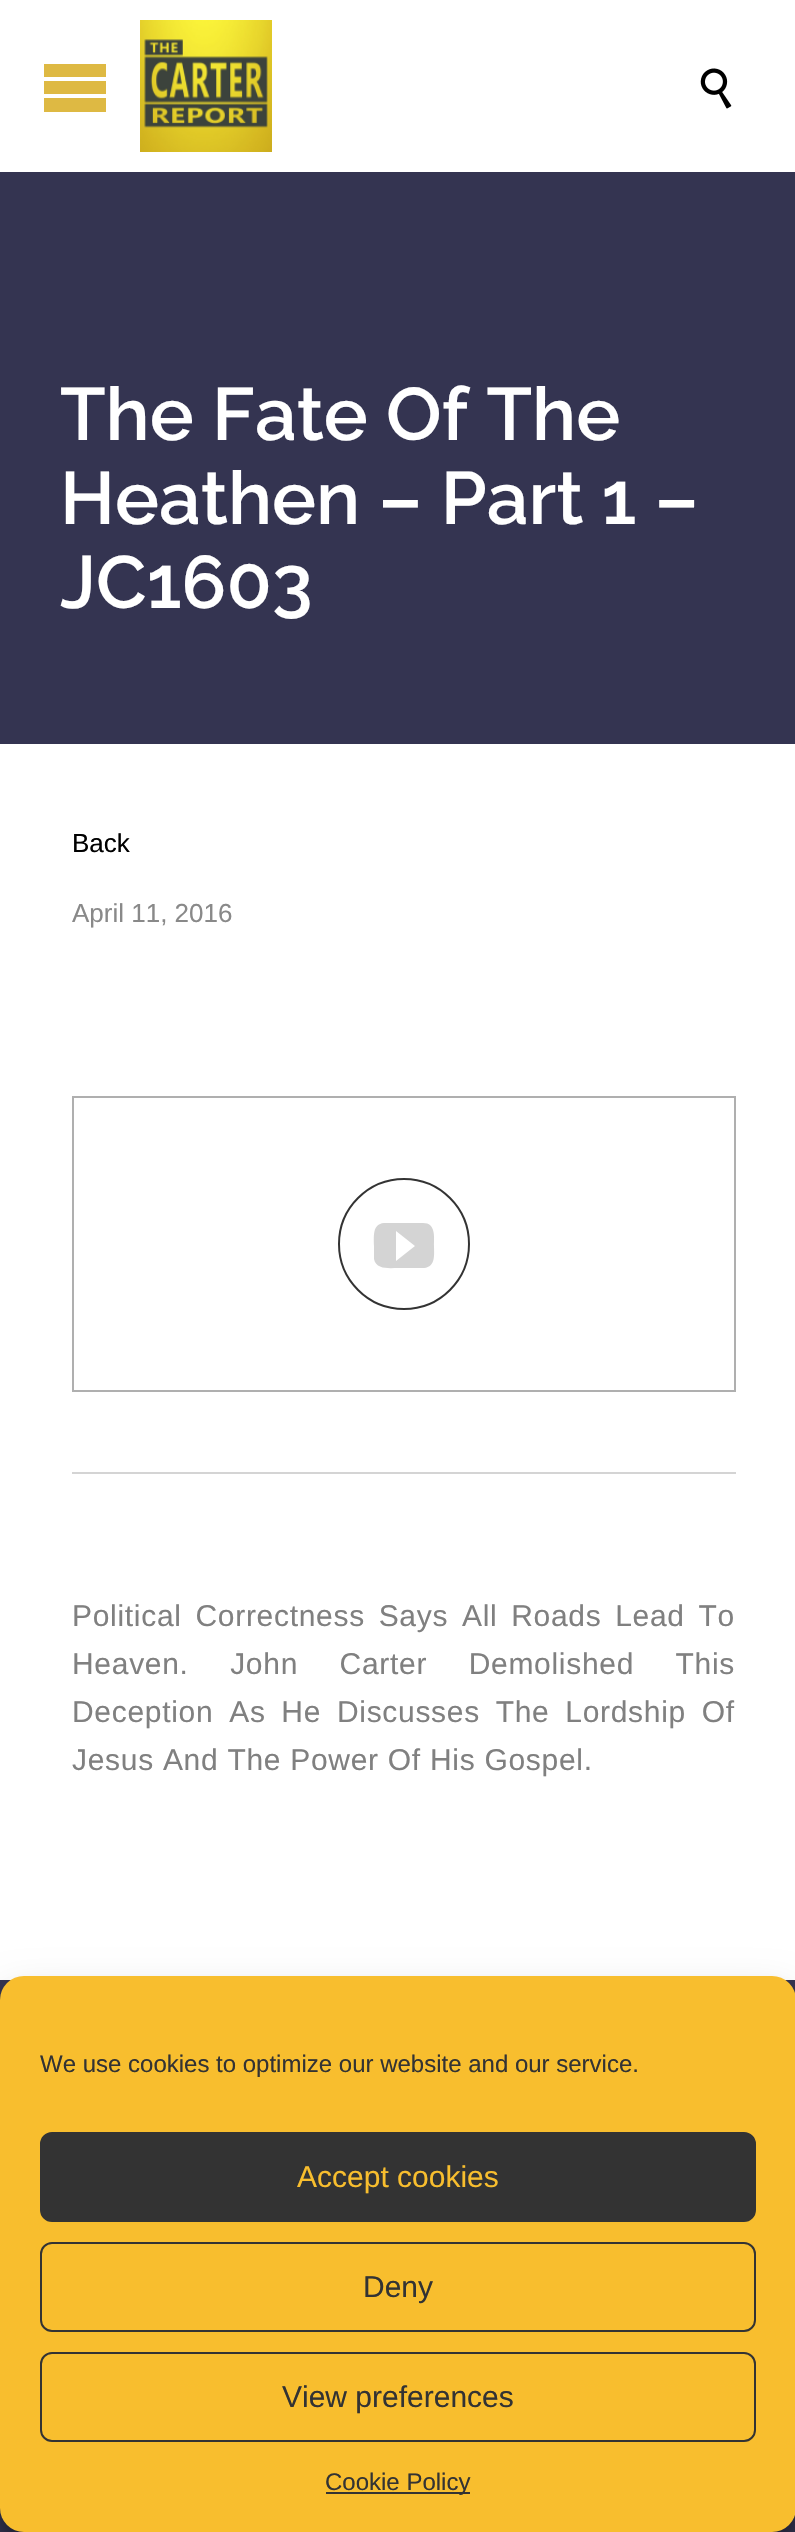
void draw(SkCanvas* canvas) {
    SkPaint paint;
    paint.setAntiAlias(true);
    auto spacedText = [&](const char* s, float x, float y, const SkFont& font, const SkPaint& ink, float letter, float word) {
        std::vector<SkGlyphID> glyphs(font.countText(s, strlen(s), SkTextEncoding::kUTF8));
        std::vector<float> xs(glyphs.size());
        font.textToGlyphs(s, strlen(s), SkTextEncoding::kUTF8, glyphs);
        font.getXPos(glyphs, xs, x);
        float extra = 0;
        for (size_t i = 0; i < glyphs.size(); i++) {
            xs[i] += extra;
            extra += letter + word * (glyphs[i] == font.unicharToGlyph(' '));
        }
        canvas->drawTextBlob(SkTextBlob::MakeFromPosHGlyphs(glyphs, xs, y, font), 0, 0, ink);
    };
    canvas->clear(0xFFFFFFFF);
    paint.setColor(0xFFDEB943);
    canvas->drawPath(SkPathBuilder().moveTo(44, 64).lineTo(106, 64).lineTo(106, 77).lineTo(44, 77).close().moveTo(44, 81).lineTo(106, 81).lineTo(106, 94).lineTo(44, 94).close().moveTo(44, 98).lineTo(106, 98).lineTo(106, 112).lineTo(44, 112).close().detach(), paint);
    canvas->drawImageRect(SkImages::DeferredFromEncodedData(SkData::MakeFromFileName("img1.png")), SkRect::MakeXYWH(140, 20, 132, 132), SkSamplingOptions());
    canvas->drawImageRect(SkImages::DeferredFromEncodedData(SkData::MakeFromFileName("img2.png")), SkRect::MakeXYWH(700, 68, 32, 41), SkSamplingOptions());
    paint.setColor(0xFF343451);
    canvas->drawRect(SkRect::MakeXYWH(0, 172, 795, 572), paint);
    SkFont font1(fontMgr->matchFamilyStyle("Raleway", SkFontStyle(600, SkFontStyle::kNormal_Width, SkFontStyle::kUpright_Slant)), 74);
    font1.setSubpixel(true);
    paint.setColor(0xFFFFFFFF);
    canvas->drawString("The Fate Of The", 60, 440, font1, paint);
    canvas->drawString("Heathen – Part 1 –", 60, 524, font1, paint);
    canvas->drawString("JC1603", 60, 608, font1, paint);
    SkFont font2(fontMgr->matchFamilyStyle("Liberation Sans", SkFontStyle::Normal()), 26);
    font2.setSubpixel(true);
    paint.setColor(0xFF000000);
    canvas->drawString("Back", 72, 852, font2, paint);
    paint.setColor(0xFF898989);
    canvas->drawString("April 11, 2016", 72, 922, font2, paint);
    paint.setStyle(SkPaint::kStroke_Style);
    paint.setStrokeWidth(2);
    paint.setColor(0xFFAFAFAF);
    canvas->drawRect(SkRect::MakeXYWH(73, 1097, 662, 294), paint);
    paint.setColor(0xFF333333);
    canvas->drawCircle(404, 1244, 65, paint);
    paint.setStyle(SkPaint::kFill_Style);
    paint.setColor(0xFFD4D4D4);
    canvas->drawPath(SkPathBuilder().moveTo(423, 1223).lineTo(384, 1223).cubicTo(372, 1224, 374, 1237, 374, 1246).lineTo(374, 1259).cubicTo(376, 1270, 390, 1268, 398, 1268).lineTo(424, 1268).cubicTo(436, 1267, 434, 1254, 434, 1246).cubicTo(434, 1237, 436, 1223, 423, 1223).close().moveTo(396, 1261).lineTo(396, 1231).lineTo(415, 1246).close().detach(), paint);
    canvas->drawRect(SkRect::MakeXYWH(72, 1472, 664, 2), paint);
    SkFont font3(fontMgr->matchFamilyStyle("Liberation Sans", SkFontStyle::Normal()), 30);
    font3.setSubpixel(true);
    paint.setColor(0xFF808080);
    spacedText("Political Correctness Says All Roads Lead To", 72, 1626, font3, paint, 0.7f, 4.75f);
    spacedText("Heaven. John Carter Demolished This", 72, 1674, font3, paint, 0.7f, 32.5f);
    spacedText("Deception As He Discusses The Lordship Of", 72, 1722, font3, paint, 0.7f, 6.75f);
    spacedText("Jesus And The Power Of His Gospel.", 72, 1770, font3, paint, 0.7f, 0);
    paint.setColor(0xFF343451);
    canvas->drawRect(SkRect::MakeXYWH(0, 1980, 795, 552), paint);
    paint.setColor(0x3B000000);
    paint.setMaskFilter(SkMaskFilter::MakeBlur(kNormal_SkBlurStyle, 6));
    canvas->drawRoundRect(SkRect::MakeXYWH(0, 1988, 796, 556), 24, 24, paint);
    paint.setMaskFilter(nullptr);
    paint.setColor(0x30000000);
    paint.setMaskFilter(SkMaskFilter::MakeBlur(kNormal_SkBlurStyle, 20));
    canvas->drawRoundRect(SkRect::MakeXYWH(0, 1996, 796, 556), 24, 24, paint);
    paint.setMaskFilter(nullptr);
    paint.setColor(0xFFF8BE2E);
    canvas->drawRoundRect(SkRect::MakeXYWH(0, 1976, 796, 556), 24, 24, paint);
    SkFont font4(fontMgr->matchFamilyStyle("Liberation Sans", SkFontStyle::Normal()), 24);
    font4.setSubpixel(true);
    paint.setColor(0xFF333333);
    canvas->drawString("We use cookies to optimize our website and our service.", 40, 2072, font4, paint);
    canvas->drawRoundRect(SkRect::MakeXYWH(41, 2133, 714, 88), 11, 11, paint);
    paint.setStyle(SkPaint::kStroke_Style);
    canvas->drawRoundRect(SkRect::MakeXYWH(41, 2133, 714, 88), 11, 11, paint);
    paint.setStyle(SkPaint::kFill_Style);
    paint.setColor(0xFFF8BE2E);
    canvas->drawString("Accept cookies", 297, 2187, font3, paint);
    paint.setStyle(SkPaint::kStroke_Style);
    paint.setColor(0xFF333333);
    canvas->drawRoundRect(SkRect::MakeXYWH(41, 2243, 714, 88), 11, 11, paint);
    paint.setStyle(SkPaint::kFill_Style);
    canvas->drawString("Deny", 363, 2297, font3, paint);
    paint.setStyle(SkPaint::kStroke_Style);
    canvas->drawRoundRect(SkRect::MakeXYWH(41, 2353, 714, 88), 11, 11, paint);
    paint.setStyle(SkPaint::kFill_Style);
    canvas->drawString("View preferences", 282, 2407, font3, paint);
    canvas->drawRect(SkRect::MakeXYWH(326, 2492, 144, 2), paint);
    canvas->drawString("Cookie Policy", 325, 2490, font4, paint);
}
